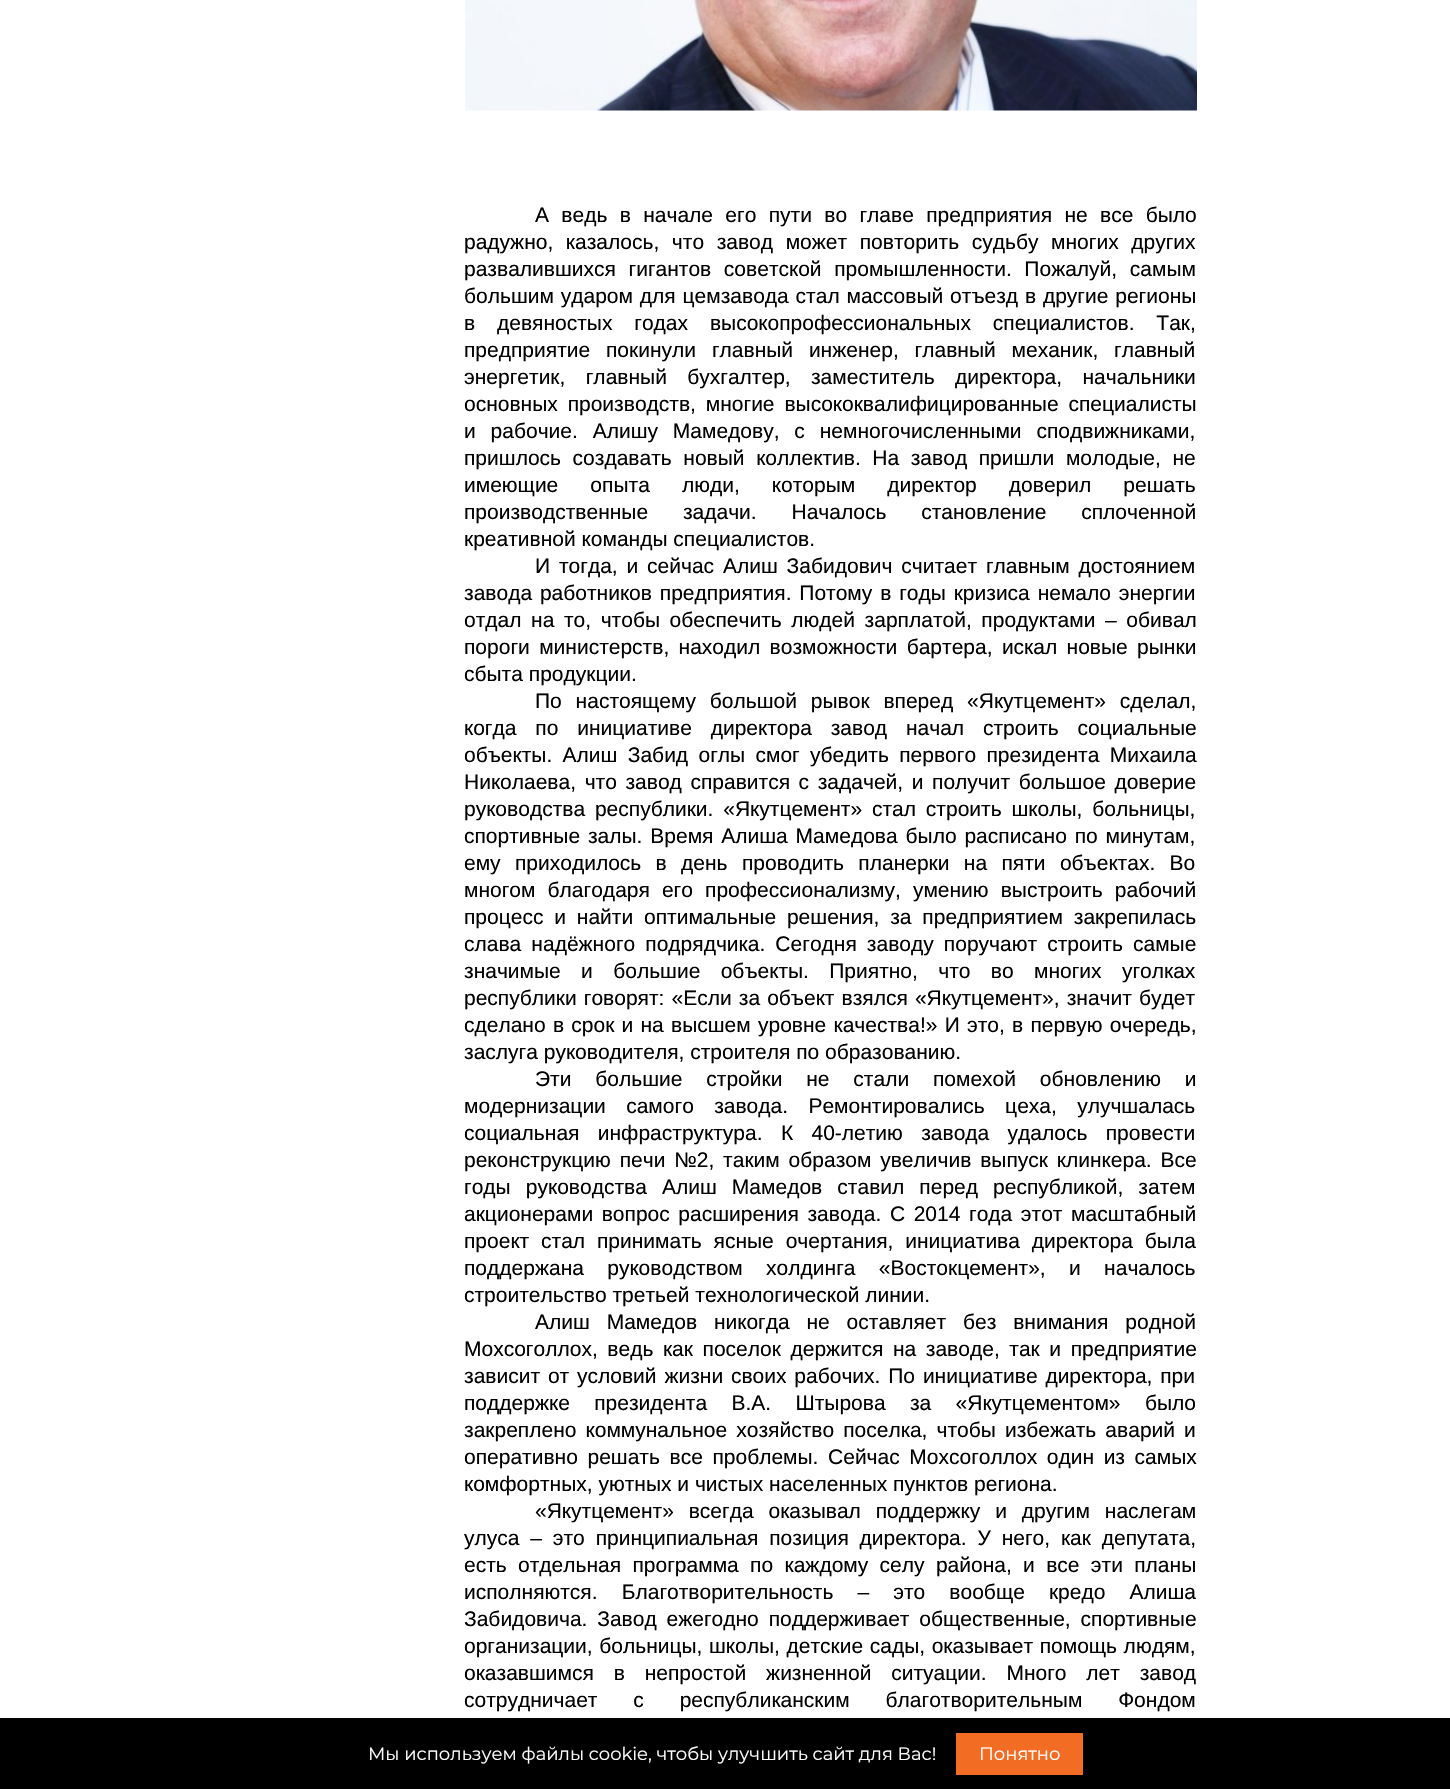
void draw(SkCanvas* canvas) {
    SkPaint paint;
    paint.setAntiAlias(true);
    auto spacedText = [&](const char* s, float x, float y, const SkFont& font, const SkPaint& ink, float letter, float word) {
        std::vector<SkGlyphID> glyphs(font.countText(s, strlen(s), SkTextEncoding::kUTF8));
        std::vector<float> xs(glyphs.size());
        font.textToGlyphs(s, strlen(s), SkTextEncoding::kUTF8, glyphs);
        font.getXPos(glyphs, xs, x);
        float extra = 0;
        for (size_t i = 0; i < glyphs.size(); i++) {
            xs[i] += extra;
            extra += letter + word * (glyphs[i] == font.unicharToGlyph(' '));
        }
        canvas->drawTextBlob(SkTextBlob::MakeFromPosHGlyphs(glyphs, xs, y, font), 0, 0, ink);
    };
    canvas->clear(0xFFFFFFFF);
    canvas->drawImageRect(SkImages::DeferredFromEncodedData(SkData::MakeFromFileName("img1.png")), SkRect::MakeXYWH(465, 0, 732, 111), SkSamplingOptions());
    SkFont font1(fontMgr->matchFamilyStyle("Liberation Sans", SkFontStyle::Normal()), 21);
    font1.setSubpixel(true);
    paint.setColor(0xFF000000);
    spacedText("А ведь в начале его пути во главе предприятия не все было", 535, 222, font1, paint, 0, 6.5f);
    spacedText("радужно, казалось, что завод может повторить судьбу многих других", 464, 249, font1, paint, 0, 6.75f);
    spacedText("развалившихся гигантов советской промышленности. Пожалуй, самым", 464, 276, font1, paint, 0, 6.75f);
    spacedText("большим ударом для цемзавода стал массовый отъезд в другие регионы", 464, 303, font1, paint, 0, 1);
    spacedText("в девяностых годах высокопрофессиональных специалистов. Так,", 464, 330, font1, paint, 0, 16);
    spacedText("предприятие покинули главный инженер, главный механик, главный", 464, 357, font1, paint, 0, 10);
    spacedText("энергетик, главный бухгалтер, заместитель директора, начальники", 464, 384, font1, paint, 0, 14.5f);
    spacedText("основных производств, многие высококвалифицированные специалисты", 464, 411, font1, paint, 0, 4);
    spacedText("и рабочие. Алишу Мамедову, с немногочисленными сподвижниками,", 464, 438, font1, paint, 0, 9);
    spacedText("пришлось создавать новый коллектив. На завод пришли молодые, не", 464, 465, font1, paint, 0, 5.75f);
    spacedText("имеющие опыта люди, которым директор доверил решать", 464, 492, font1, paint, 0, 26.25f);
    spacedText("производственные задачи. Началось становление сплоченной", 464, 519, font1, paint, 0, 29);
    canvas->drawString("креативной команды специалистов.", 464, 546, font1, paint);
    spacedText("И тогда, и сейчас Алиш Забидович считает главным достоянием", 535, 573, font1, paint, 0, 3);
    spacedText("завода работников предприятия. Потому в годы кризиса немало энергии", 464, 600, font1, paint, 0, 2);
    spacedText("отдал на то, чтобы обеспечить людей зарплатой, продуктами – обивал", 464, 627, font1, paint, 0, 3.75f);
    spacedText("пороги министерств, находил возможности бартера, искал новые рынки", 464, 654, font1, paint, 0, 3.5f);
    canvas->drawString("сбыта продукции.", 464, 681, font1, paint);
    spacedText("По настоящему большой рывок вперед «Якутцемент» сделал,", 535, 708, font1, paint, 0, 8);
    spacedText("когда по инициативе директора завод начал строить социальные", 464, 735, font1, paint, 0, 13);
    spacedText("объекты. Алиш Забид оглы смог убедить первого президента Михаила", 464, 762, font1, paint, 0, 4.5f);
    spacedText("Николаева, что завод справится с задачей, и получит большое доверие", 464, 789, font1, paint, 0, 2.75f);
    spacedText("руководства республики. «Якутцемент» стал строить школы, больницы,", 464, 816, font1, paint, 0, 4);
    spacedText("спортивные залы. Время Алиша Мамедова было расписано по минутам,", 464, 843, font1, paint, 0, 2);
    spacedText("ему приходилось в день проводить планерки на пяти объектах. Во", 464, 870, font1, paint, 0, 8.5f);
    spacedText("многом благодаря его профессионализму, умению выстроить рабочий", 464, 897, font1, paint, 0, 6.25f);
    spacedText("процесс и найти оптимальные решения, за предприятием закрепилась", 464, 924, font1, paint, 0, 5);
    spacedText("слава надёжного подрядчика. Сегодня заводу поручают строить самые", 464, 951, font1, paint, 0, 4.25f);
    spacedText("значимые и большие объекты. Приятно, что во многих уголках", 464, 978, font1, paint, 0, 14.5f);
    spacedText("республики говорят: «Если за объект взялся «Якутцемент», значит будет", 464, 1005, font1, paint, 0, 1.25f);
    spacedText("сделано в срок и на высшем уровне качества!» И это, в первую очередь,", 464, 1032, font1, paint, 0, 1.4f);
    canvas->drawString("заслуга руководителя, строителя по образованию.", 464, 1059, font1, paint);
    spacedText("Эти большие стройки не стали помехой обновлению и", 535, 1086, font1, paint, 0, 18);
    spacedText("модернизации самого завода. Ремонтировались цеха, улучшалась", 464, 1113, font1, paint, 0, 14.5f);
    spacedText("социальная инфраструктура. К 40-летию завода удалось провести", 464, 1140, font1, paint, 0, 12.5f);
    spacedText("реконструкцию печи №2, таким образом увеличив выпуск клинкера. Все", 464, 1167, font1, paint, 0, 3);
    spacedText("годы руководства Алиш Мамедов ставил перед республикой, затем", 464, 1194, font1, paint, 0, 9.25f);
    spacedText("акционерами вопрос расширения завода. С 2014 года этот масштабный", 464, 1221, font1, paint, 0, 2.75f);
    spacedText("проект стал принимать ясные очертания, инициатива директора была", 464, 1248, font1, paint, 0, 6);
    spacedText("поддержана руководством холдинга «Востокцемент», и началось", 464, 1275, font1, paint, 0, 17.5f);
    canvas->drawString("строительство третьей технологической линии.", 464, 1302, font1, paint);
    spacedText("Алиш Мамедов никогда не оставляет без внимания родной", 535, 1329, font1, paint, 0, 11);
    spacedText("Мохсоголлох, ведь как поселок держится на заводе, так и предприятие", 464, 1356, font1, paint, 0, 3.75f);
    spacedText("зависит от условий жизни своих рабочих. По инициативе директора, при", 464, 1383, font1, paint, 0, 2);
    spacedText("поддержке президента В.А. Штырова за «Якутцементом» было", 464, 1410, font1, paint, 0, 18.5f);
    spacedText("закреплено коммунальное хозяйство поселка, чтобы избежать аварий и", 464, 1437, font1, paint, 0, 3.25f);
    spacedText("оперативно решать все проблемы. Сейчас Мохсоголлох один из самых", 464, 1464, font1, paint, 0, 3.75f);
    canvas->drawString("комфортных, уютных и чистых населенных пунктов региона.", 464, 1491, font1, paint);
    spacedText("«Якутцемент» всегда оказывал поддержку и другим наслегам", 535, 1518, font1, paint, 0, 9);
    spacedText("улуса – это принципиальная позиция директора. У него, как депутата,", 464, 1545, font1, paint, 0, 5);
    spacedText("есть отдельная программа по каждому селу района, и все эти планы", 464, 1572, font1, paint, 0, 5.5f);
    spacedText("исполняются. Благотворительность – это вообще кредо Алиша", 464, 1599, font1, paint, 0, 18.25f);
    spacedText("Забидовича. Завод ежегодно поддерживает общественные, спортивные", 464, 1626, font1, paint, 0, 4);
    spacedText("организации, больницы, школы, детские сады, оказывает помощь людям,", 464, 1653, font1, paint, 0, 0.75f);
    spacedText("оказавшимся в непростой жизненной ситуации. Много лет завод", 464, 1680, font1, paint, 0, 14);
    spacedText("сотрудничает с республиканским благотворительным Фондом", 464, 1707, font1, paint, 0, 30);
    canvas->drawRect(SkRect::MakeXYWH(0, 1718, 1450, 71), paint);
    SkFont font2(fontMgr->matchFamilyStyle("Montserrat", SkFontStyle::Normal()), 18);
    font2.setSubpixel(true);
    paint.setColor(0xFFFFFFFF);
    canvas->drawString("Мы используем файлы cookie, чтобы улучшить сайт для Вас!", 368, 1760, font2, paint);
    paint.setColor(0xFFF36C24);
    canvas->drawRect(SkRect::MakeXYWH(956, 1733, 127, 42), paint);
    paint.setColor(0xFFFFFFFF);
    canvas->drawString("Понятно", 979, 1760, font2, paint);
}
